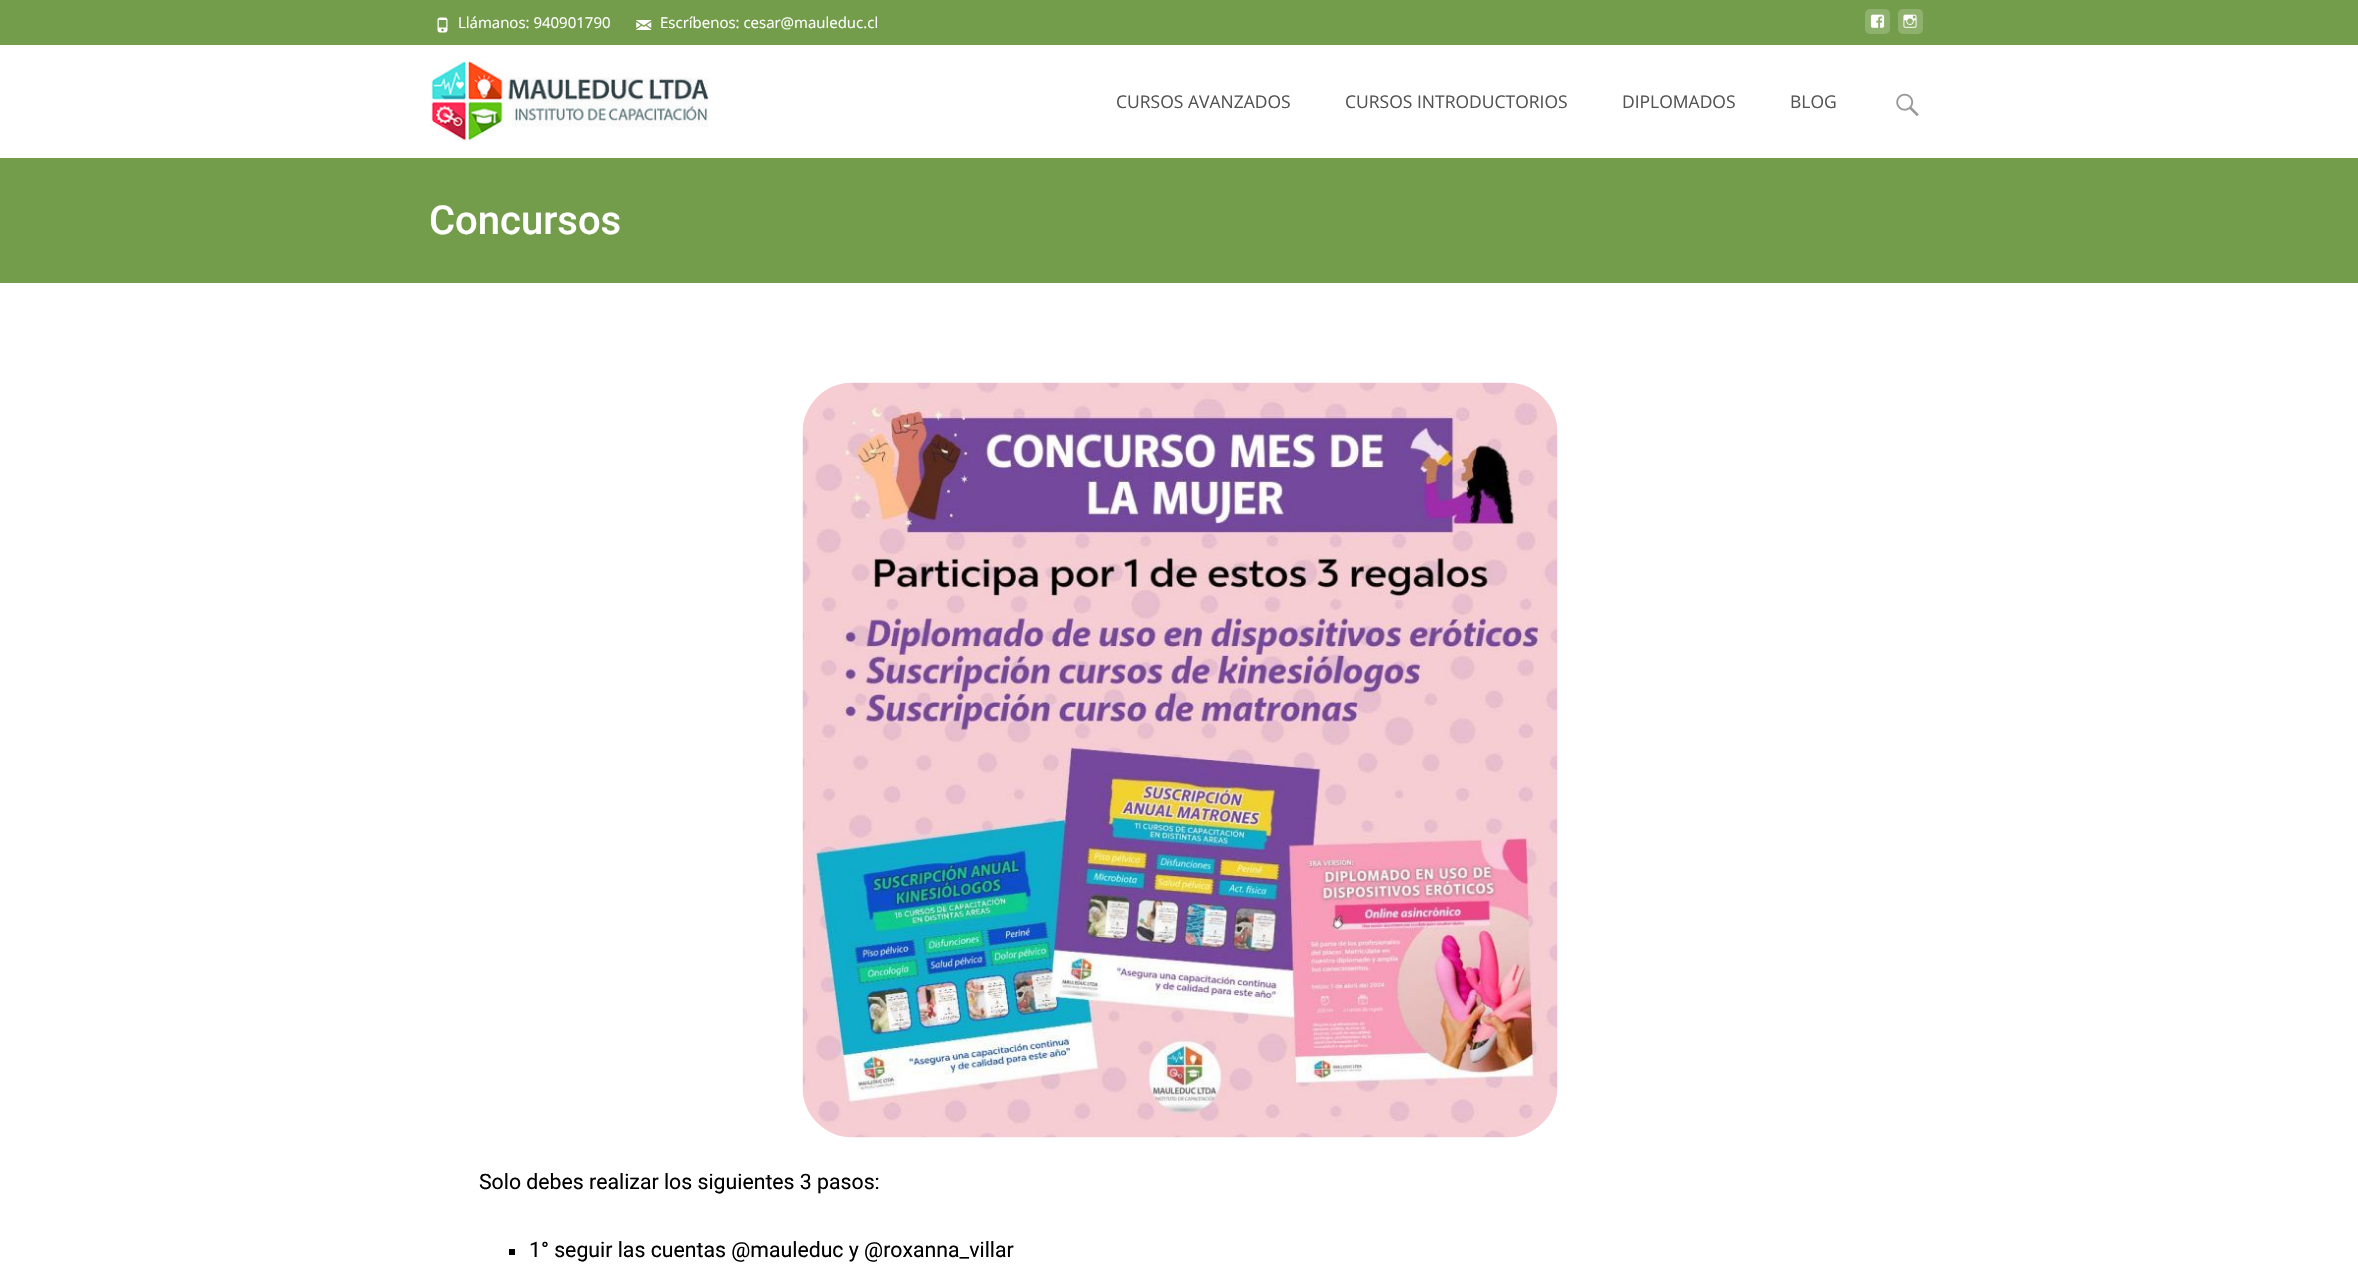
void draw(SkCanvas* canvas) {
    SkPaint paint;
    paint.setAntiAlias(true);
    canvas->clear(0xFFFFFFFF);
    paint.setColor(0xFF739D4A);
    canvas->drawRect(SkRect::MakeXYWH(0, 0, 2358, 45), paint);
    canvas->drawImageRect(SkImages::DeferredFromEncodedData(SkData::MakeFromFileName("img1.png")), SkRect::MakeXYWH(437, 17, 11, 16), SkSamplingOptions());
    SkFont font1(fontMgr->matchFamilyStyle("Open Sans", SkFontStyle::Normal()), 15);
    font1.setSubpixel(true);
    paint.setColor(0xFFFFFFFF);
    canvas->drawString("Llámanos: 940901790", 458, 28, font1, paint);
    canvas->drawImageRect(SkImages::DeferredFromEncodedData(SkData::MakeFromFileName("img2.png")), SkRect::MakeXYWH(636, 20, 16, 10), SkSamplingOptions());
    canvas->drawString("Escríbenos: cesar@mauleduc.cl", 660, 28, font1, paint);
    paint.setColor(0xFF8FB16E);
    canvas->drawRoundRect(SkRect::MakeXYWH(1865, 9, 25, 25), 5, 5, paint);
    canvas->drawImageRect(SkImages::DeferredFromEncodedData(SkData::MakeFromFileName("img3.png")), SkRect::MakeXYWH(1870, 14, 15, 14), SkSamplingOptions());
    canvas->drawRoundRect(SkRect::MakeXYWH(1898, 9, 25, 25), 5, 5, paint);
    canvas->drawImageRect(SkImages::DeferredFromEncodedData(SkData::MakeFromFileName("img4.png")), SkRect::MakeXYWH(1903, 14, 14, 14), SkSamplingOptions());
    canvas->drawImageRect(SkImages::DeferredFromEncodedData(SkData::MakeFromFileName("img5.png")), SkRect::MakeXYWH(430, 61, 279, 80), SkSamplingOptions());
    SkFont font2(fontMgr->matchFamilyStyle("Open Sans", SkFontStyle::Normal()), 17.5f);
    font2.setSubpixel(true);
    paint.setColor(0xFF545454);
    canvas->drawString("CURSOS AVANZADOS", 1116, 108, font2, paint);
    canvas->drawString("CURSOS INTRODUCTORIOS", 1345, 108, font2, paint);
    canvas->drawString("DIPLOMADOS", 1622, 108, font2, paint);
    canvas->drawString("BLOG", 1790, 108, font2, paint);
    canvas->drawImageRect(SkImages::DeferredFromEncodedData(SkData::MakeFromFileName("img6.png")), SkRect::MakeXYWH(1896, 93, 23, 24), SkSamplingOptions());
    paint.setColor(0xFF739D4A);
    canvas->drawRect(SkRect::MakeXYWH(0, 158, 2358, 125), paint);
    SkFont font3(fontMgr->matchFamilyStyle("Roboto", SkFontStyle(500, SkFontStyle::kNormal_Width, SkFontStyle::kUpright_Slant)), 40);
    font3.setSubpixel(true);
    paint.setColor(0xFFFFFFFF);
    canvas->drawString("Concursos", 429, 234, font3, paint);
    canvas->drawImageRect(SkImages::DeferredFromEncodedData(SkData::MakeFromFileName("img7.png")), SkRect::MakeXYWH(802, 382, 756, 756), SkSamplingOptions());
    SkFont font4(fontMgr->matchFamilyStyle("Roboto", SkFontStyle::Normal()), 21.25f);
    font4.setSubpixel(true);
    paint.setColor(0xFF000000);
    canvas->drawString("Solo debes realizar los siguientes 3 pasos:", 479, 1189, font4, paint);
    canvas->drawRect(SkRect::MakeXYWH(509, 1249, 6, 6), paint);
    canvas->drawString("1° seguir las cuentas @mauleduc y @roxanna_villar", 529, 1257, font4, paint);
}
